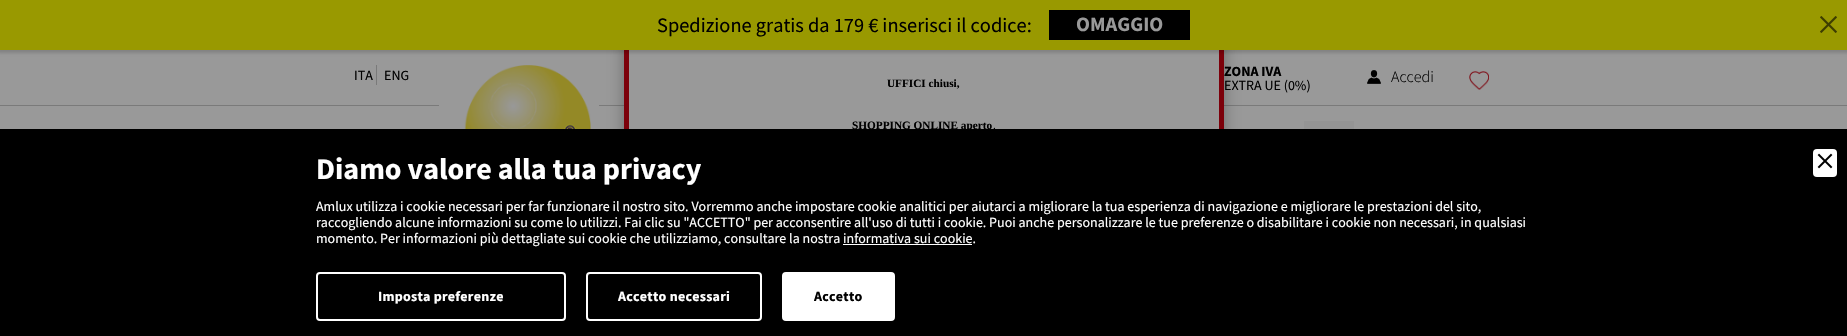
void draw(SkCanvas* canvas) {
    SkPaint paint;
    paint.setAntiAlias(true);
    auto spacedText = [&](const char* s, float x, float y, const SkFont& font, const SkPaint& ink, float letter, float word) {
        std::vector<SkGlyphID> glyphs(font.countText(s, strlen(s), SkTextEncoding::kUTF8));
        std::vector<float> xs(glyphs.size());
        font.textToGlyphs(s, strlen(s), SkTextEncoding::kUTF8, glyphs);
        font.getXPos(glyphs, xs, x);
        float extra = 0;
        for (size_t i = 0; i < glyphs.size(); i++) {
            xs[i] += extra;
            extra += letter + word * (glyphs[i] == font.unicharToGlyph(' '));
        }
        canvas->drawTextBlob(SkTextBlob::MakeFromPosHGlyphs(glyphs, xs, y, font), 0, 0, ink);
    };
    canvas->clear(0xFF999999);
    paint.setColor(0xFF7A7A7A);
    canvas->drawRect(SkRect::MakeXYWH(0, 105, 1847, 1), paint);
    paint.setColor(0x4D000000);
    paint.setMaskFilter(SkMaskFilter::MakeBlur(kNormal_SkBlurStyle, 7.5f));
    canvas->drawRoundRect(SkRect::MakeXYWH(624, 37, 600, 262), 10, 10, paint);
    paint.setMaskFilter(nullptr);
    paint.setColor(0xFF999999);
    canvas->drawRect(SkRect::MakeXYWH(629, 50, 590, 79), paint);
    paint.setStyle(SkPaint::kStroke_Style);
    paint.setStrokeWidth(5);
    paint.setColor(0xFF7C000A);
    canvas->drawRect(SkRect::MakeXYWH(626.5f, 39.5f, 595, 257), paint);
    paint.setStyle(SkPaint::kFill_Style);
    paint.setColor(0x26000000);
    paint.setMaskFilter(SkMaskFilter::MakeBlur(kNormal_SkBlurStyle, 1.5f));
    canvas->drawRect(SkRect::MakeXYWH(-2, -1, 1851, 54), paint);
    paint.setMaskFilter(nullptr);
    paint.setColor(0xFF999900);
    canvas->drawRect(SkRect::MakeXYWH(0, 0, 1847, 50), paint);
    SkFont font1(fontMgr->matchFamilyStyle("Source Sans Pro", SkFontStyle::Normal()), 20.4f);
    font1.setSubpixel(true);
    paint.setColor(0xFF000000);
    canvas->drawString("Spedizione gratis da 179 € inserisci il codice:", 657, 32, font1, paint);
    canvas->drawRect(SkRect::MakeXYWH(1049, 10, 141, 30), paint);
    SkFont font2(fontMgr->matchFamilyStyle("Source Sans Pro", SkFontStyle::Bold()), 20.4f);
    font2.setSubpixel(true);
    paint.setColor(0xFF999999);
    canvas->drawString("OMAGGIO", 1076, 31, font2, paint);
    canvas->drawImageRect(SkImages::DeferredFromEncodedData(SkData::MakeFromFileName("img1.png")), SkRect::MakeXYWH(1820, 16, 17, 17), SkSamplingOptions());
    paint.setColor(0xFF7A7A7A);
    canvas->drawRect(SkRect::MakeXYWH(376, 65, 1, 20), paint);
    SkFont font3(fontMgr->matchFamilyStyle("Source Sans Pro", SkFontStyle::Normal()), 14);
    font3.setSubpixel(true);
    paint.setColor(0xFF000000);
    canvas->drawString("ITA", 354, 80, font3, paint);
    canvas->drawString("ENG", 384, 80, font3, paint);
    canvas->drawImageRect(SkImages::DeferredFromEncodedData(SkData::MakeFromFileName("img2.png")), SkRect::MakeXYWH(439, 65, 160, 64), SkSamplingOptions());
    SkFont font4(fontMgr->matchFamilyStyle("Source Sans Pro", SkFontStyle::Bold()), 14);
    font4.setSubpixel(true);
    canvas->drawString("ZONA IVA", 1224, 76, font4, paint);
    canvas->drawString("EXTRA UE (0%)", 1224, 90, font3, paint);
    canvas->drawImageRect(SkImages::DeferredFromEncodedData(SkData::MakeFromFileName("img3.png")), SkRect::MakeXYWH(1367, 70, 14, 14), SkSamplingOptions());
    SkFont font5(fontMgr->matchFamilyStyle("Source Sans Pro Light", SkFontStyle(300, SkFontStyle::kNormal_Width, SkFontStyle::kUpright_Slant)), 16);
    font5.setSubpixel(true);
    canvas->drawString("Accedi", 1391, 82, font5, paint);
    canvas->drawImageRect(SkImages::DeferredFromEncodedData(SkData::MakeFromFileName("img4.png")), SkRect::MakeXYWH(1469, 71, 20, 19), SkSamplingOptions());
    paint.setColor(0xFF949494);
    canvas->drawRect(SkRect::MakeXYWH(1304, 121, 50, 8), paint);
    SkFont font6(fontMgr->matchFamilyStyle("Liberation Serif", SkFontStyle::Bold()), 11.25f);
    font6.setSubpixel(true);
    paint.setColor(0xFF000000);
    canvas->drawString("UFFICI chiusi,", 887, 87, font6, paint);
    canvas->drawString("SHOPPING ONLINE aperto", 852, 129, font6, paint);
    SkFont font7(fontMgr->matchFamilyStyle("Liberation Serif", SkFontStyle::Normal()), 11.25f);
    font7.setSubpixel(true);
    canvas->drawString(".", 993, 129, font7, paint);
    canvas->drawRect(SkRect::MakeXYWH(0, 129, 1847, 207), paint);
    SkFont font8(fontMgr->matchFamilyStyle("Source Sans Pro", SkFontStyle::Bold()), 30);
    font8.setSubpixel(true);
    paint.setColor(0xFFFFFFFF);
    canvas->drawString("Diamo valore alla tua privacy", 316, 179, font8, paint);
    canvas->drawRoundRect(SkRect::MakeXYWH(1813, 149, 24, 28), 4, 4, paint);
    canvas->drawImageRect(SkImages::DeferredFromEncodedData(SkData::MakeFromFileName("img5.png")), SkRect::MakeXYWH(1817, 153, 16, 16), SkSamplingOptions());
    canvas->drawString("Amlux utilizza i cookie necessari per far funzionare il nostro sito. Vorremmo anche impostare cookie analitici per aiutarci a migliorare la tua esperienza di navigazione e migliorare le prestazioni del sito,", 316, 211, font3, paint);
    canvas->drawString("raccogliendo alcune informazioni su come lo utilizzi. Fai clic su \"ACCETTO\" per acconsentire all'uso di tutti i cookie. Puoi anche personalizzare le tue preferenze o disabilitare i cookie non necessari, in qualsiasi", 316, 227, font3, paint);
    canvas->drawString("momento. Per informazioni più dettagliate sui cookie che utilizziamo, consultare la nostra informativa sui cookie.", 316, 243, font3, paint);
    canvas->drawRect(SkRect::MakeXYWH(843, 244, 129, 1), paint);
    paint.setStyle(SkPaint::kStroke_Style);
    paint.setStrokeWidth(2);
    canvas->drawRoundRect(SkRect::MakeXYWH(317, 273, 248, 47), 3, 3, paint);
    paint.setStyle(SkPaint::kFill_Style);
    spacedText("Imposta preferenze", 378, 301, font4, paint, 0.25f, 0);
    paint.setStyle(SkPaint::kStroke_Style);
    canvas->drawRoundRect(SkRect::MakeXYWH(587, 273, 174, 47), 3, 3, paint);
    paint.setStyle(SkPaint::kFill_Style);
    spacedText("Accetto necessari", 618, 301, font4, paint, 0.25f, 0);
    canvas->drawRoundRect(SkRect::MakeXYWH(783, 273, 111, 47), 3, 3, paint);
    paint.setStyle(SkPaint::kStroke_Style);
    canvas->drawRoundRect(SkRect::MakeXYWH(783, 273, 111, 47), 3, 3, paint);
    paint.setStyle(SkPaint::kFill_Style);
    paint.setColor(0xFF000000);
    spacedText("Accetto", 814, 301, font4, paint, 0.25f, 0);
}
